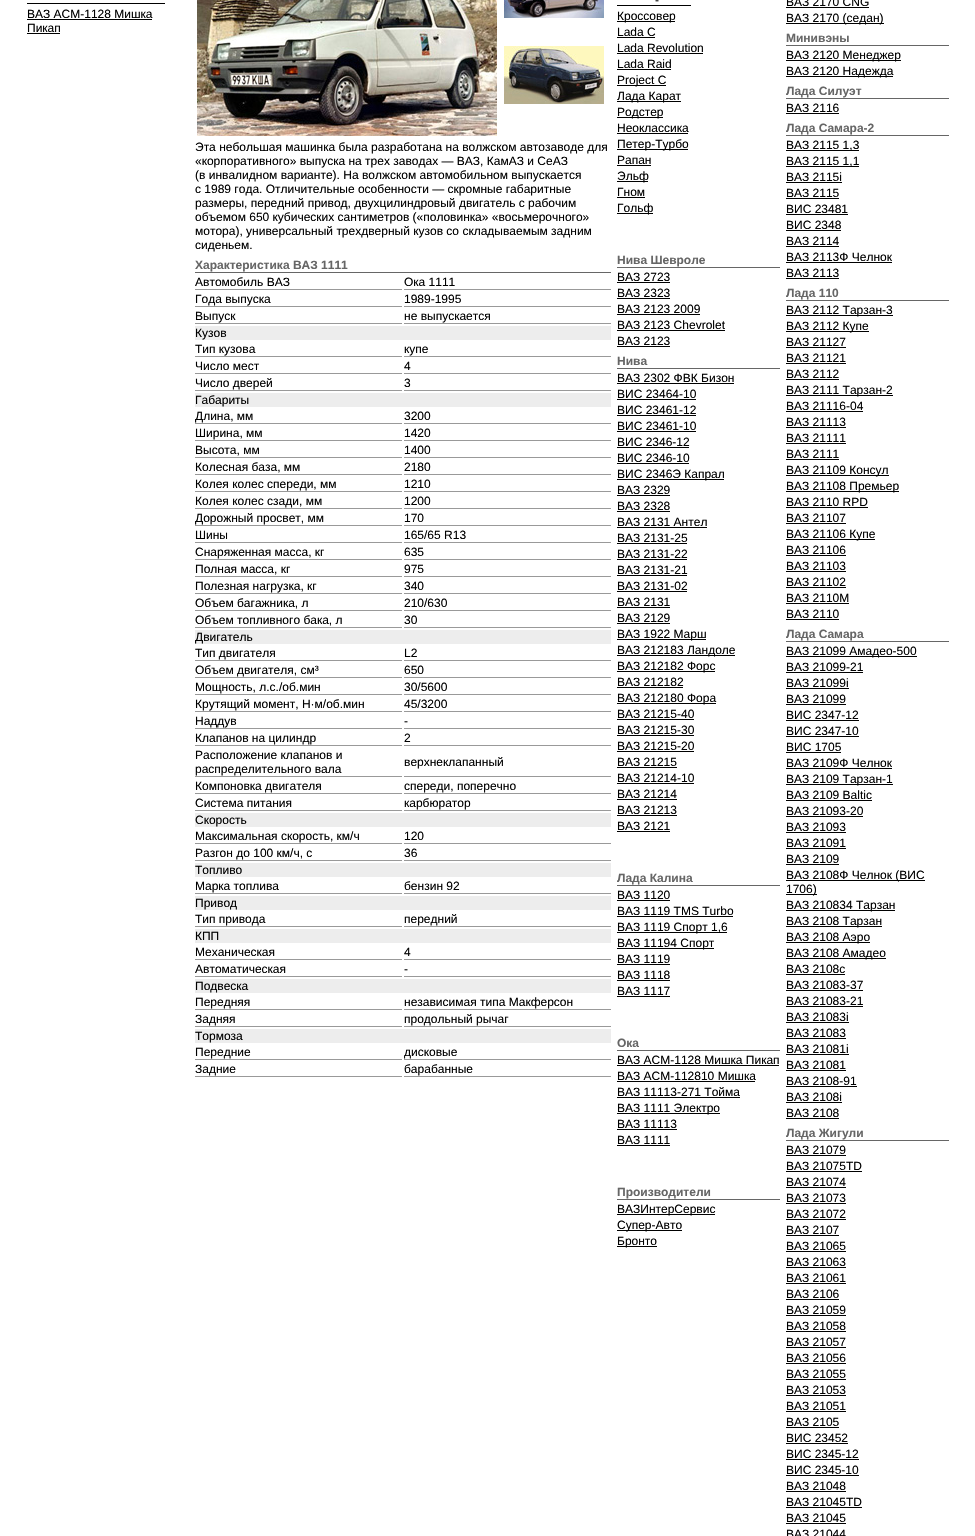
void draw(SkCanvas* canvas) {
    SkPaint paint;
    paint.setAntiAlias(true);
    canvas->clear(0xFFFFFFFF);
    paint.setColor(0xFF000000);
    canvas->drawRect(SkRect::MakeXYWH(27, 3, 138, 1), paint);
    SkFont font1(fontMgr->matchFamilyStyle("Liberation Sans", SkFontStyle::Normal()), 12);
    font1.setSubpixel(true);
    canvas->drawString("ВАЗ АСМ-1128 Мишка", 27, 18, font1, paint);
    canvas->drawRect(SkRect::MakeXYWH(27, 19, 125, 1), paint);
    canvas->drawString("Пикап", 27, 32, font1, paint);
    canvas->drawRect(SkRect::MakeXYWH(27, 33, 33, 1), paint);
    canvas->drawString("-", 655, 4, font1, paint);
    canvas->drawRect(SkRect::MakeXYWH(617, 5, 74, 1), paint);
    canvas->drawRect(SkRect::MakeXYWH(617, 21, 58, 1), paint);
    canvas->drawString("Кроссовер", 617, 20, font1, paint);
    canvas->drawString("Lada C", 617, 36, font1, paint);
    canvas->drawRect(SkRect::MakeXYWH(617, 37, 38, 1), paint);
    canvas->drawString("Lada Revolution", 617, 52, font1, paint);
    canvas->drawRect(SkRect::MakeXYWH(617, 53, 86, 1), paint);
    canvas->drawString("Lada Raid", 617, 68, font1, paint);
    canvas->drawRect(SkRect::MakeXYWH(617, 69, 54, 1), paint);
    canvas->drawRect(SkRect::MakeXYWH(617, 85, 49, 1), paint);
    canvas->drawString("Project C", 617, 84, font1, paint);
    canvas->drawRect(SkRect::MakeXYWH(617, 101, 64, 1), paint);
    canvas->drawString("Лада Карат", 617, 100, font1, paint);
    canvas->drawRect(SkRect::MakeXYWH(617, 117, 46, 1), paint);
    canvas->drawString("Родстер", 617, 116, font1, paint);
    canvas->drawString("Неоклассика", 617, 132, font1, paint);
    canvas->drawRect(SkRect::MakeXYWH(617, 133, 71, 1), paint);
    canvas->drawRect(SkRect::MakeXYWH(617, 149, 71, 1), paint);
    canvas->drawString("Петер-Турбо", 617, 148, font1, paint);
    canvas->drawString("Рапан", 617, 164, font1, paint);
    canvas->drawRect(SkRect::MakeXYWH(617, 165, 34, 1), paint);
    canvas->drawRect(SkRect::MakeXYWH(617, 181, 31, 1), paint);
    canvas->drawString("Эльф", 617, 180, font1, paint);
    canvas->drawString("Гном", 617, 196, font1, paint);
    canvas->drawRect(SkRect::MakeXYWH(617, 197, 28, 1), paint);
    canvas->drawRect(SkRect::MakeXYWH(617, 213, 36, 1), paint);
    canvas->drawString("Гольф", 617, 212, font1, paint);
    paint.setColor(0xFF666666);
    canvas->drawRect(SkRect::MakeXYWH(617, 267, 163, 1), paint);
    SkFont font2(fontMgr->matchFamilyStyle("Liberation Sans", SkFontStyle::Bold()), 12);
    font2.setSubpixel(true);
    canvas->drawString("Нива Шевроле", 617, 264, font2, paint);
    paint.setColor(0xFF000000);
    canvas->drawString("ВАЗ 2723", 617, 281, font1, paint);
    canvas->drawRect(SkRect::MakeXYWH(617, 282, 53, 1), paint);
    canvas->drawString("ВАЗ 2323", 617, 297, font1, paint);
    canvas->drawRect(SkRect::MakeXYWH(617, 298, 53, 1), paint);
    canvas->drawString("ВАЗ 2123 2009", 617, 313, font1, paint);
    canvas->drawRect(SkRect::MakeXYWH(617, 314, 83, 1), paint);
    canvas->drawString("ВАЗ 2123 Chevrolet", 617, 329, font1, paint);
    canvas->drawRect(SkRect::MakeXYWH(617, 330, 108, 1), paint);
    canvas->drawString("ВАЗ 2123", 617, 345, font1, paint);
    canvas->drawRect(SkRect::MakeXYWH(617, 346, 53, 1), paint);
    paint.setColor(0xFF666666);
    canvas->drawRect(SkRect::MakeXYWH(617, 368, 163, 1), paint);
    canvas->drawString("Нива", 617, 365, font2, paint);
    paint.setColor(0xFF000000);
    canvas->drawString("ВАЗ 2302 ФВК Бизон", 617, 382, font1, paint);
    canvas->drawRect(SkRect::MakeXYWH(617, 383, 117, 1), paint);
    canvas->drawString("ВИС 23464-10", 617, 398, font1, paint);
    canvas->drawRect(SkRect::MakeXYWH(617, 399, 79, 1), paint);
    canvas->drawString("ВИС 23461-12", 617, 414, font1, paint);
    canvas->drawRect(SkRect::MakeXYWH(617, 415, 79, 1), paint);
    canvas->drawString("ВИС 23461-10", 617, 430, font1, paint);
    canvas->drawRect(SkRect::MakeXYWH(617, 431, 79, 1), paint);
    canvas->drawString("ВИС 2346-12", 617, 446, font1, paint);
    canvas->drawRect(SkRect::MakeXYWH(617, 447, 72, 1), paint);
    canvas->drawString("ВИС 2346-10", 617, 462, font1, paint);
    canvas->drawRect(SkRect::MakeXYWH(617, 463, 72, 1), paint);
    canvas->drawRect(SkRect::MakeXYWH(617, 479, 107, 1), paint);
    canvas->drawString("ВИС 2346Э Капрал", 617, 478, font1, paint);
    canvas->drawString("ВАЗ 2329", 617, 494, font1, paint);
    canvas->drawRect(SkRect::MakeXYWH(617, 495, 53, 1), paint);
    canvas->drawString("ВАЗ 2328", 617, 510, font1, paint);
    canvas->drawRect(SkRect::MakeXYWH(617, 511, 53, 1), paint);
    canvas->drawString("ВАЗ 2131 Антел", 617, 526, font1, paint);
    canvas->drawRect(SkRect::MakeXYWH(617, 527, 90, 1), paint);
    canvas->drawString("ВАЗ 2131-25", 617, 542, font1, paint);
    canvas->drawRect(SkRect::MakeXYWH(617, 543, 70, 1), paint);
    canvas->drawString("ВАЗ 2131-22", 617, 558, font1, paint);
    canvas->drawRect(SkRect::MakeXYWH(617, 559, 70, 1), paint);
    canvas->drawString("ВАЗ 2131-21", 617, 574, font1, paint);
    canvas->drawRect(SkRect::MakeXYWH(617, 575, 70, 1), paint);
    canvas->drawString("ВАЗ 2131-02", 617, 590, font1, paint);
    canvas->drawRect(SkRect::MakeXYWH(617, 591, 70, 1), paint);
    canvas->drawString("ВАЗ 2131", 617, 606, font1, paint);
    canvas->drawRect(SkRect::MakeXYWH(617, 607, 53, 1), paint);
    canvas->drawString("ВАЗ 2129", 617, 622, font1, paint);
    canvas->drawRect(SkRect::MakeXYWH(617, 623, 53, 1), paint);
    canvas->drawRect(SkRect::MakeXYWH(617, 639, 89, 1), paint);
    canvas->drawString("ВАЗ 1922 Марш", 617, 638, font1, paint);
    canvas->drawRect(SkRect::MakeXYWH(617, 655, 118, 1), paint);
    canvas->drawString("ВАЗ 212183 Ландоле", 617, 654, font1, paint);
    canvas->drawRect(SkRect::MakeXYWH(617, 671, 98, 1), paint);
    canvas->drawString("ВАЗ 212182 Форс", 617, 670, font1, paint);
    canvas->drawString("ВАЗ 212182", 617, 686, font1, paint);
    canvas->drawRect(SkRect::MakeXYWH(617, 687, 66, 1), paint);
    canvas->drawRect(SkRect::MakeXYWH(617, 703, 99, 1), paint);
    canvas->drawString("ВАЗ 212180 Фора", 617, 702, font1, paint);
    canvas->drawString("ВАЗ 21215-40", 617, 718, font1, paint);
    canvas->drawRect(SkRect::MakeXYWH(617, 719, 77, 1), paint);
    canvas->drawString("ВАЗ 21215-30", 617, 734, font1, paint);
    canvas->drawRect(SkRect::MakeXYWH(617, 735, 77, 1), paint);
    canvas->drawString("ВАЗ 21215-20", 617, 750, font1, paint);
    canvas->drawRect(SkRect::MakeXYWH(617, 751, 77, 1), paint);
    canvas->drawString("ВАЗ 21215", 617, 766, font1, paint);
    canvas->drawRect(SkRect::MakeXYWH(617, 767, 60, 1), paint);
    canvas->drawString("ВАЗ 21214-10", 617, 782, font1, paint);
    canvas->drawRect(SkRect::MakeXYWH(617, 783, 77, 1), paint);
    canvas->drawString("ВАЗ 21214", 617, 798, font1, paint);
    canvas->drawRect(SkRect::MakeXYWH(617, 799, 60, 1), paint);
    canvas->drawString("ВАЗ 21213", 617, 814, font1, paint);
    canvas->drawRect(SkRect::MakeXYWH(617, 815, 60, 1), paint);
    canvas->drawString("ВАЗ 2121", 617, 830, font1, paint);
    canvas->drawRect(SkRect::MakeXYWH(617, 831, 53, 1), paint);
    paint.setColor(0xFF666666);
    canvas->drawRect(SkRect::MakeXYWH(617, 885, 163, 1), paint);
    canvas->drawString("Лада Калина", 617, 882, font2, paint);
    paint.setColor(0xFF000000);
    canvas->drawString("ВАЗ 1120", 617, 899, font1, paint);
    canvas->drawRect(SkRect::MakeXYWH(617, 900, 53, 1), paint);
    canvas->drawString("ВАЗ 1119 TMS Turbo", 617, 915, font1, paint);
    canvas->drawRect(SkRect::MakeXYWH(617, 916, 116, 1), paint);
    canvas->drawRect(SkRect::MakeXYWH(617, 932, 110, 1), paint);
    canvas->drawString("ВАЗ 1119 Спорт 1,6", 617, 931, font1, paint);
    canvas->drawRect(SkRect::MakeXYWH(617, 948, 97, 1), paint);
    canvas->drawString("ВАЗ 11194 Спорт", 617, 947, font1, paint);
    canvas->drawString("ВАЗ 1119", 617, 963, font1, paint);
    canvas->drawRect(SkRect::MakeXYWH(617, 964, 53, 1), paint);
    canvas->drawString("ВАЗ 1118", 617, 979, font1, paint);
    canvas->drawRect(SkRect::MakeXYWH(617, 980, 53, 1), paint);
    canvas->drawString("ВАЗ 1117", 617, 995, font1, paint);
    canvas->drawRect(SkRect::MakeXYWH(617, 996, 53, 1), paint);
    paint.setColor(0xFF666666);
    canvas->drawRect(SkRect::MakeXYWH(617, 1050, 163, 1), paint);
    canvas->drawString("Ока", 617, 1047, font2, paint);
    paint.setColor(0xFF000000);
    canvas->drawString("ВАЗ АСМ-1128 Мишка Пикап", 617, 1064, font1, paint);
    canvas->drawRect(SkRect::MakeXYWH(617, 1065, 162, 1), paint);
    canvas->drawString("ВАЗ АСМ-112810 Мишка", 617, 1080, font1, paint);
    canvas->drawRect(SkRect::MakeXYWH(617, 1081, 138, 1), paint);
    canvas->drawString("ВАЗ 11113-271 Тойма", 617, 1096, font1, paint);
    canvas->drawRect(SkRect::MakeXYWH(617, 1097, 123, 1), paint);
    canvas->drawRect(SkRect::MakeXYWH(617, 1113, 103, 1), paint);
    canvas->drawString("ВАЗ 1111 Электро", 617, 1112, font1, paint);
    canvas->drawString("ВАЗ 11113", 617, 1128, font1, paint);
    canvas->drawRect(SkRect::MakeXYWH(617, 1129, 60, 1), paint);
    canvas->drawString("ВАЗ 1111", 617, 1144, font1, paint);
    canvas->drawRect(SkRect::MakeXYWH(617, 1145, 53, 1), paint);
    paint.setColor(0xFF666666);
    canvas->drawRect(SkRect::MakeXYWH(617, 1199, 163, 1), paint);
    canvas->drawString("Производители", 617, 1196, font2, paint);
    paint.setColor(0xFF000000);
    canvas->drawRect(SkRect::MakeXYWH(617, 1214, 98, 1), paint);
    canvas->drawString("ВАЗИнтерСервис", 617, 1213, font1, paint);
    canvas->drawRect(SkRect::MakeXYWH(617, 1230, 65, 1), paint);
    canvas->drawString("Супер-Авто", 617, 1229, font1, paint);
    canvas->drawRect(SkRect::MakeXYWH(617, 1246, 40, 1), paint);
    canvas->drawString("Бронто", 617, 1245, font1, paint);
    canvas->drawString("ВАЗ 2170 CNG", 786, 6, font1, paint);
    canvas->drawRect(SkRect::MakeXYWH(786, 7, 83, 1), paint);
    canvas->drawRect(SkRect::MakeXYWH(786, 23, 98, 1), paint);
    canvas->drawString("ВАЗ 2170 (седан)", 786, 22, font1, paint);
    paint.setColor(0xFF666666);
    canvas->drawRect(SkRect::MakeXYWH(786, 45, 163, 1), paint);
    canvas->drawString("Минивэны", 786, 42, font2, paint);
    paint.setColor(0xFF000000);
    canvas->drawRect(SkRect::MakeXYWH(786, 60, 115, 1), paint);
    canvas->drawString("ВАЗ 2120 Менеджер", 786, 59, font1, paint);
    canvas->drawRect(SkRect::MakeXYWH(786, 76, 107, 1), paint);
    canvas->drawString("ВАЗ 2120 Надежда", 786, 75, font1, paint);
    paint.setColor(0xFF666666);
    canvas->drawRect(SkRect::MakeXYWH(786, 98, 163, 1), paint);
    canvas->drawString("Лада Силуэт", 786, 95, font2, paint);
    paint.setColor(0xFF000000);
    canvas->drawString("ВАЗ 2116", 786, 112, font1, paint);
    canvas->drawRect(SkRect::MakeXYWH(786, 113, 53, 1), paint);
    paint.setColor(0xFF666666);
    canvas->drawRect(SkRect::MakeXYWH(786, 135, 163, 1), paint);
    canvas->drawString("Лада Самара-2", 786, 132, font2, paint);
    paint.setColor(0xFF000000);
    canvas->drawRect(SkRect::MakeXYWH(786, 150, 73, 1), paint);
    canvas->drawString("ВАЗ 2115 1,3", 786, 149, font1, paint);
    canvas->drawRect(SkRect::MakeXYWH(786, 166, 73, 1), paint);
    canvas->drawString("ВАЗ 2115 1,1", 786, 165, font1, paint);
    canvas->drawString("ВАЗ 2115i", 786, 181, font1, paint);
    canvas->drawRect(SkRect::MakeXYWH(786, 182, 56, 1), paint);
    canvas->drawString("ВАЗ 2115", 786, 197, font1, paint);
    canvas->drawRect(SkRect::MakeXYWH(786, 198, 53, 1), paint);
    canvas->drawString("ВИС 23481", 786, 213, font1, paint);
    canvas->drawRect(SkRect::MakeXYWH(786, 214, 62, 1), paint);
    canvas->drawString("ВИС 2348", 786, 229, font1, paint);
    canvas->drawRect(SkRect::MakeXYWH(786, 230, 55, 1), paint);
    canvas->drawString("ВАЗ 2114", 786, 245, font1, paint);
    canvas->drawRect(SkRect::MakeXYWH(786, 246, 53, 1), paint);
    canvas->drawString("ВАЗ 2113Ф Челнок", 786, 261, font1, paint);
    canvas->drawRect(SkRect::MakeXYWH(786, 262, 106, 1), paint);
    canvas->drawString("ВАЗ 2113", 786, 277, font1, paint);
    canvas->drawRect(SkRect::MakeXYWH(786, 278, 53, 1), paint);
    paint.setColor(0xFF666666);
    canvas->drawRect(SkRect::MakeXYWH(786, 300, 163, 1), paint);
    canvas->drawString("Лада 110", 786, 297, font2, paint);
    paint.setColor(0xFF000000);
    canvas->drawRect(SkRect::MakeXYWH(786, 315, 107, 1), paint);
    canvas->drawString("ВАЗ 2112 Тарзан-3", 786, 314, font1, paint);
    canvas->drawRect(SkRect::MakeXYWH(786, 331, 83, 1), paint);
    canvas->drawString("ВАЗ 2112 Купе", 786, 330, font1, paint);
    canvas->drawString("ВАЗ 21127", 786, 346, font1, paint);
    canvas->drawRect(SkRect::MakeXYWH(786, 347, 60, 1), paint);
    canvas->drawString("ВАЗ 21121", 786, 362, font1, paint);
    canvas->drawRect(SkRect::MakeXYWH(786, 363, 60, 1), paint);
    canvas->drawString("ВАЗ 2112", 786, 378, font1, paint);
    canvas->drawRect(SkRect::MakeXYWH(786, 379, 53, 1), paint);
    canvas->drawRect(SkRect::MakeXYWH(786, 395, 107, 1), paint);
    canvas->drawString("ВАЗ 2111 Тарзан-2", 786, 394, font1, paint);
    canvas->drawString("ВАЗ 21116-04", 786, 410, font1, paint);
    canvas->drawRect(SkRect::MakeXYWH(786, 411, 77, 1), paint);
    canvas->drawString("ВАЗ 21113", 786, 426, font1, paint);
    canvas->drawRect(SkRect::MakeXYWH(786, 427, 60, 1), paint);
    canvas->drawString("ВАЗ 21111", 786, 442, font1, paint);
    canvas->drawRect(SkRect::MakeXYWH(786, 443, 60, 1), paint);
    canvas->drawString("ВАЗ 2111", 786, 458, font1, paint);
    canvas->drawRect(SkRect::MakeXYWH(786, 459, 53, 1), paint);
    canvas->drawRect(SkRect::MakeXYWH(786, 475, 103, 1), paint);
    canvas->drawString("ВАЗ 21109 Консул", 786, 474, font1, paint);
    canvas->drawRect(SkRect::MakeXYWH(786, 491, 113, 1), paint);
    canvas->drawString("ВАЗ 21108 Премьер", 786, 490, font1, paint);
    canvas->drawString("ВАЗ 2110 RPD", 786, 506, font1, paint);
    canvas->drawRect(SkRect::MakeXYWH(786, 507, 82, 1), paint);
    canvas->drawString("ВАЗ 21107", 786, 522, font1, paint);
    canvas->drawRect(SkRect::MakeXYWH(786, 523, 60, 1), paint);
    canvas->drawRect(SkRect::MakeXYWH(786, 539, 89, 1), paint);
    canvas->drawString("ВАЗ 21106 Купе", 786, 538, font1, paint);
    canvas->drawString("ВАЗ 21106", 786, 554, font1, paint);
    canvas->drawRect(SkRect::MakeXYWH(786, 555, 60, 1), paint);
    canvas->drawString("ВАЗ 21103", 786, 570, font1, paint);
    canvas->drawRect(SkRect::MakeXYWH(786, 571, 60, 1), paint);
    canvas->drawString("ВАЗ 21102", 786, 586, font1, paint);
    canvas->drawRect(SkRect::MakeXYWH(786, 587, 60, 1), paint);
    canvas->drawString("ВАЗ 2110М", 786, 602, font1, paint);
    canvas->drawRect(SkRect::MakeXYWH(786, 603, 63, 1), paint);
    canvas->drawString("ВАЗ 2110", 786, 618, font1, paint);
    canvas->drawRect(SkRect::MakeXYWH(786, 619, 53, 1), paint);
    paint.setColor(0xFF666666);
    canvas->drawRect(SkRect::MakeXYWH(786, 641, 163, 1), paint);
    canvas->drawString("Лада Самара", 786, 638, font2, paint);
    paint.setColor(0xFF000000);
    canvas->drawRect(SkRect::MakeXYWH(786, 656, 131, 1), paint);
    canvas->drawString("ВАЗ 21099 Амадео-500", 786, 655, font1, paint);
    canvas->drawString("ВАЗ 21099-21", 786, 671, font1, paint);
    canvas->drawRect(SkRect::MakeXYWH(786, 672, 77, 1), paint);
    canvas->drawString("ВАЗ 21099i", 786, 687, font1, paint);
    canvas->drawRect(SkRect::MakeXYWH(786, 688, 63, 1), paint);
    canvas->drawString("ВАЗ 21099", 786, 703, font1, paint);
    canvas->drawRect(SkRect::MakeXYWH(786, 704, 60, 1), paint);
    canvas->drawString("ВИС 2347-12", 786, 719, font1, paint);
    canvas->drawRect(SkRect::MakeXYWH(786, 720, 73, 1), paint);
    canvas->drawString("ВИС 2347-10", 786, 735, font1, paint);
    canvas->drawRect(SkRect::MakeXYWH(786, 736, 73, 1), paint);
    canvas->drawString("ВИС 1705", 786, 751, font1, paint);
    canvas->drawRect(SkRect::MakeXYWH(786, 752, 55, 1), paint);
    canvas->drawString("ВАЗ 2109Ф Челнок", 786, 767, font1, paint);
    canvas->drawRect(SkRect::MakeXYWH(786, 768, 106, 1), paint);
    canvas->drawRect(SkRect::MakeXYWH(786, 784, 107, 1), paint);
    canvas->drawString("ВАЗ 2109 Тарзан-1", 786, 783, font1, paint);
    canvas->drawString("ВАЗ 2109 Baltic", 786, 799, font1, paint);
    canvas->drawRect(SkRect::MakeXYWH(786, 800, 86, 1), paint);
    canvas->drawString("ВАЗ 21093-20", 786, 815, font1, paint);
    canvas->drawRect(SkRect::MakeXYWH(786, 816, 77, 1), paint);
    canvas->drawString("ВАЗ 21093", 786, 831, font1, paint);
    canvas->drawRect(SkRect::MakeXYWH(786, 832, 60, 1), paint);
    canvas->drawString("ВАЗ 21091", 786, 847, font1, paint);
    canvas->drawRect(SkRect::MakeXYWH(786, 848, 60, 1), paint);
    canvas->drawString("ВАЗ 2109", 786, 863, font1, paint);
    canvas->drawRect(SkRect::MakeXYWH(786, 864, 53, 1), paint);
    canvas->drawRect(SkRect::MakeXYWH(786, 880, 139, 1), paint);
    canvas->drawString("ВАЗ 2108Ф Челнок (ВИС", 786, 879, font1, paint);
    canvas->drawRect(SkRect::MakeXYWH(786, 894, 31, 1), paint);
    canvas->drawString("1706)", 786, 893, font1, paint);
    canvas->drawRect(SkRect::MakeXYWH(786, 910, 109, 1), paint);
    canvas->drawString("ВАЗ 210834 Тарзан", 786, 909, font1, paint);
    canvas->drawRect(SkRect::MakeXYWH(786, 926, 96, 1), paint);
    canvas->drawString("ВАЗ 2108 Тарзан", 786, 925, font1, paint);
    canvas->drawRect(SkRect::MakeXYWH(786, 942, 84, 1), paint);
    canvas->drawString("ВАЗ 2108 Аэро", 786, 941, font1, paint);
    canvas->drawRect(SkRect::MakeXYWH(786, 958, 100, 1), paint);
    canvas->drawString("ВАЗ 2108 Амадео", 786, 957, font1, paint);
    canvas->drawString("ВАЗ 2108c", 786, 973, font1, paint);
    canvas->drawRect(SkRect::MakeXYWH(786, 974, 59, 1), paint);
    canvas->drawString("ВАЗ 21083-37", 786, 989, font1, paint);
    canvas->drawRect(SkRect::MakeXYWH(786, 990, 77, 1), paint);
    canvas->drawString("ВАЗ 21083-21", 786, 1005, font1, paint);
    canvas->drawRect(SkRect::MakeXYWH(786, 1006, 77, 1), paint);
    canvas->drawString("ВАЗ 21083i", 786, 1021, font1, paint);
    canvas->drawRect(SkRect::MakeXYWH(786, 1022, 63, 1), paint);
    canvas->drawString("ВАЗ 21083", 786, 1037, font1, paint);
    canvas->drawRect(SkRect::MakeXYWH(786, 1038, 60, 1), paint);
    canvas->drawString("ВАЗ 21081i", 786, 1053, font1, paint);
    canvas->drawRect(SkRect::MakeXYWH(786, 1054, 63, 1), paint);
    canvas->drawString("ВАЗ 21081", 786, 1069, font1, paint);
    canvas->drawRect(SkRect::MakeXYWH(786, 1070, 60, 1), paint);
    canvas->drawString("ВАЗ 2108-91", 786, 1085, font1, paint);
    canvas->drawRect(SkRect::MakeXYWH(786, 1086, 71, 1), paint);
    canvas->drawString("ВАЗ 2108i", 786, 1101, font1, paint);
    canvas->drawRect(SkRect::MakeXYWH(786, 1102, 56, 1), paint);
    canvas->drawString("ВАЗ 2108", 786, 1117, font1, paint);
    canvas->drawRect(SkRect::MakeXYWH(786, 1118, 53, 1), paint);
    paint.setColor(0xFF666666);
    canvas->drawRect(SkRect::MakeXYWH(786, 1140, 163, 1), paint);
    canvas->drawString("Лада Жигули", 786, 1137, font2, paint);
    paint.setColor(0xFF000000);
    canvas->drawString("ВАЗ 21079", 786, 1154, font1, paint);
    canvas->drawRect(SkRect::MakeXYWH(786, 1155, 60, 1), paint);
    canvas->drawString("ВАЗ 21075TD", 786, 1170, font1, paint);
    canvas->drawRect(SkRect::MakeXYWH(786, 1171, 76, 1), paint);
    canvas->drawString("ВАЗ 21074", 786, 1186, font1, paint);
    canvas->drawRect(SkRect::MakeXYWH(786, 1187, 60, 1), paint);
    canvas->drawString("ВАЗ 21073", 786, 1202, font1, paint);
    canvas->drawRect(SkRect::MakeXYWH(786, 1203, 60, 1), paint);
    canvas->drawString("ВАЗ 21072", 786, 1218, font1, paint);
    canvas->drawRect(SkRect::MakeXYWH(786, 1219, 60, 1), paint);
    canvas->drawString("ВАЗ 2107", 786, 1234, font1, paint);
    canvas->drawRect(SkRect::MakeXYWH(786, 1235, 53, 1), paint);
    canvas->drawString("ВАЗ 21065", 786, 1250, font1, paint);
    canvas->drawRect(SkRect::MakeXYWH(786, 1251, 60, 1), paint);
    canvas->drawString("ВАЗ 21063", 786, 1266, font1, paint);
    canvas->drawRect(SkRect::MakeXYWH(786, 1267, 60, 1), paint);
    canvas->drawString("ВАЗ 21061", 786, 1282, font1, paint);
    canvas->drawRect(SkRect::MakeXYWH(786, 1283, 60, 1), paint);
    canvas->drawString("ВАЗ 2106", 786, 1298, font1, paint);
    canvas->drawRect(SkRect::MakeXYWH(786, 1299, 53, 1), paint);
    canvas->drawString("ВАЗ 21059", 786, 1314, font1, paint);
    canvas->drawRect(SkRect::MakeXYWH(786, 1315, 60, 1), paint);
    canvas->drawString("ВАЗ 21058", 786, 1330, font1, paint);
    canvas->drawRect(SkRect::MakeXYWH(786, 1331, 60, 1), paint);
    canvas->drawString("ВАЗ 21057", 786, 1346, font1, paint);
    canvas->drawRect(SkRect::MakeXYWH(786, 1347, 60, 1), paint);
    canvas->drawString("ВАЗ 21056", 786, 1362, font1, paint);
    canvas->drawRect(SkRect::MakeXYWH(786, 1363, 60, 1), paint);
    canvas->drawString("ВАЗ 21055", 786, 1378, font1, paint);
    canvas->drawRect(SkRect::MakeXYWH(786, 1379, 60, 1), paint);
    canvas->drawString("ВАЗ 21053", 786, 1394, font1, paint);
    canvas->drawRect(SkRect::MakeXYWH(786, 1395, 60, 1), paint);
    canvas->drawString("ВАЗ 21051", 786, 1410, font1, paint);
    canvas->drawRect(SkRect::MakeXYWH(786, 1411, 60, 1), paint);
    canvas->drawString("ВАЗ 2105", 786, 1426, font1, paint);
    canvas->drawRect(SkRect::MakeXYWH(786, 1427, 53, 1), paint);
    canvas->drawString("ВИС 23452", 786, 1442, font1, paint);
    canvas->drawRect(SkRect::MakeXYWH(786, 1443, 62, 1), paint);
    canvas->drawString("ВИС 2345-12", 786, 1458, font1, paint);
    canvas->drawRect(SkRect::MakeXYWH(786, 1459, 73, 1), paint);
    canvas->drawString("ВИС 2345-10", 786, 1474, font1, paint);
    canvas->drawRect(SkRect::MakeXYWH(786, 1475, 73, 1), paint);
    canvas->drawString("ВАЗ 21048", 786, 1490, font1, paint);
    canvas->drawRect(SkRect::MakeXYWH(786, 1491, 60, 1), paint);
    canvas->drawString("ВАЗ 21045TD", 786, 1506, font1, paint);
    canvas->drawRect(SkRect::MakeXYWH(786, 1507, 76, 1), paint);
    canvas->drawString("ВАЗ 21045", 786, 1522, font1, paint);
    canvas->drawRect(SkRect::MakeXYWH(786, 1523, 60, 1), paint);
    canvas->drawString("ВАЗ 21044", 786, 1538, font1, paint);
    canvas->drawImageRect(SkImages::DeferredFromEncodedData(SkData::MakeFromFileName("img1.png")), SkRect::MakeXYWH(197, 0, 300, 136), SkSamplingOptions());
    canvas->drawImageRect(SkImages::DeferredFromEncodedData(SkData::MakeFromFileName("img2.png")), SkRect::MakeXYWH(504, 0, 100, 18), SkSamplingOptions());
    canvas->drawImageRect(SkImages::DeferredFromEncodedData(SkData::MakeFromFileName("img3.png")), SkRect::MakeXYWH(504, 46, 100, 58), SkSamplingOptions());
    canvas->drawString("Эта небольшая машинка была разработана на волжском автозаводе для", 195, 151, font1, paint);
    canvas->drawString("«корпоративного» выпуска на трех заводах — ВАЗ, КамАЗ и СеАЗ", 195, 165, font1, paint);
    canvas->drawString("(в инвалидном варианте). На волжском автомобильном выпускается", 195, 179, font1, paint);
    canvas->drawString("с 1989 года. Отличительные особенности — скромные габаритные", 195, 193, font1, paint);
    canvas->drawString("размеры, передний привод, двухцилиндровый двигатель с рабочим", 195, 207, font1, paint);
    canvas->drawString("объемом 650 кубических сантиметров («половинка» «восьмерочного»", 195, 221, font1, paint);
    canvas->drawString("мотора), универсальный трехдверный кузов со складываемым задним", 195, 235, font1, paint);
    canvas->drawString("сиденьем.", 195, 249, font1, paint);
    paint.setColor(0xFF666666);
    canvas->drawRect(SkRect::MakeXYWH(195, 272, 416, 1), paint);
    canvas->drawString("Характеристика ВАЗ 1111", 195, 269, font2, paint);
    paint.setColor(0xFF999999);
    canvas->drawRect(SkRect::MakeXYWH(195, 289, 207, 1), paint);
    paint.setColor(0xFF000000);
    canvas->drawString("Автомобиль ВАЗ", 195, 286, font1, paint);
    paint.setColor(0xFF999999);
    canvas->drawRect(SkRect::MakeXYWH(404, 289, 207, 1), paint);
    paint.setColor(0xFF000000);
    canvas->drawString("Ока 1111", 404, 286, font1, paint);
    paint.setColor(0xFF999999);
    canvas->drawRect(SkRect::MakeXYWH(195, 306, 207, 1), paint);
    paint.setColor(0xFF000000);
    canvas->drawString("Года выпуска", 195, 303, font1, paint);
    paint.setColor(0xFF999999);
    canvas->drawRect(SkRect::MakeXYWH(404, 306, 207, 1), paint);
    paint.setColor(0xFF000000);
    canvas->drawString("1989-1995", 404, 303, font1, paint);
    paint.setColor(0xFF999999);
    canvas->drawRect(SkRect::MakeXYWH(195, 323, 207, 1), paint);
    paint.setColor(0xFF000000);
    canvas->drawString("Выпуск", 195, 320, font1, paint);
    paint.setColor(0xFF999999);
    canvas->drawRect(SkRect::MakeXYWH(404, 323, 207, 1), paint);
    paint.setColor(0xFF000000);
    canvas->drawString("не выпускается", 404, 320, font1, paint);
    paint.setColor(0xFFEDEDED);
    canvas->drawRect(SkRect::MakeXYWH(195, 326, 416, 14), paint);
    paint.setColor(0xFF000000);
    canvas->drawString("Кузов", 195, 337, font1, paint);
    paint.setColor(0xFF999999);
    canvas->drawRect(SkRect::MakeXYWH(195, 356, 207, 1), paint);
    paint.setColor(0xFF000000);
    canvas->drawString("Тип кузова", 195, 353, font1, paint);
    paint.setColor(0xFF999999);
    canvas->drawRect(SkRect::MakeXYWH(404, 356, 207, 1), paint);
    paint.setColor(0xFF000000);
    canvas->drawString("купе", 404, 353, font1, paint);
    paint.setColor(0xFF999999);
    canvas->drawRect(SkRect::MakeXYWH(195, 373, 207, 1), paint);
    paint.setColor(0xFF000000);
    canvas->drawString("Число мест", 195, 370, font1, paint);
    paint.setColor(0xFF999999);
    canvas->drawRect(SkRect::MakeXYWH(404, 373, 207, 1), paint);
    paint.setColor(0xFF000000);
    canvas->drawString("4", 404, 370, font1, paint);
    paint.setColor(0xFF999999);
    canvas->drawRect(SkRect::MakeXYWH(195, 390, 207, 1), paint);
    paint.setColor(0xFF000000);
    canvas->drawString("Число дверей", 195, 387, font1, paint);
    paint.setColor(0xFF999999);
    canvas->drawRect(SkRect::MakeXYWH(404, 390, 207, 1), paint);
    paint.setColor(0xFF000000);
    canvas->drawString("3", 404, 387, font1, paint);
    paint.setColor(0xFFEDEDED);
    canvas->drawRect(SkRect::MakeXYWH(195, 393, 416, 14), paint);
    paint.setColor(0xFF000000);
    canvas->drawString("Габариты", 195, 404, font1, paint);
    paint.setColor(0xFF999999);
    canvas->drawRect(SkRect::MakeXYWH(195, 423, 207, 1), paint);
    paint.setColor(0xFF000000);
    canvas->drawString("Длина, мм", 195, 420, font1, paint);
    paint.setColor(0xFF999999);
    canvas->drawRect(SkRect::MakeXYWH(404, 423, 207, 1), paint);
    paint.setColor(0xFF000000);
    canvas->drawString("3200", 404, 420, font1, paint);
    paint.setColor(0xFF999999);
    canvas->drawRect(SkRect::MakeXYWH(195, 440, 207, 1), paint);
    paint.setColor(0xFF000000);
    canvas->drawString("Ширина, мм", 195, 437, font1, paint);
    paint.setColor(0xFF999999);
    canvas->drawRect(SkRect::MakeXYWH(404, 440, 207, 1), paint);
    paint.setColor(0xFF000000);
    canvas->drawString("1420", 404, 437, font1, paint);
    paint.setColor(0xFF999999);
    canvas->drawRect(SkRect::MakeXYWH(195, 457, 207, 1), paint);
    paint.setColor(0xFF000000);
    canvas->drawString("Высота, мм", 195, 454, font1, paint);
    paint.setColor(0xFF999999);
    canvas->drawRect(SkRect::MakeXYWH(404, 457, 207, 1), paint);
    paint.setColor(0xFF000000);
    canvas->drawString("1400", 404, 454, font1, paint);
    paint.setColor(0xFF999999);
    canvas->drawRect(SkRect::MakeXYWH(195, 474, 207, 1), paint);
    paint.setColor(0xFF000000);
    canvas->drawString("Колесная база, мм", 195, 471, font1, paint);
    paint.setColor(0xFF999999);
    canvas->drawRect(SkRect::MakeXYWH(404, 474, 207, 1), paint);
    paint.setColor(0xFF000000);
    canvas->drawString("2180", 404, 471, font1, paint);
    paint.setColor(0xFF999999);
    canvas->drawRect(SkRect::MakeXYWH(195, 491, 207, 1), paint);
    paint.setColor(0xFF000000);
    canvas->drawString("Колея колес спереди, мм", 195, 488, font1, paint);
    paint.setColor(0xFF999999);
    canvas->drawRect(SkRect::MakeXYWH(404, 491, 207, 1), paint);
    paint.setColor(0xFF000000);
    canvas->drawString("1210", 404, 488, font1, paint);
    paint.setColor(0xFF999999);
    canvas->drawRect(SkRect::MakeXYWH(195, 508, 207, 1), paint);
    paint.setColor(0xFF000000);
    canvas->drawString("Колея колес сзади, мм", 195, 505, font1, paint);
    paint.setColor(0xFF999999);
    canvas->drawRect(SkRect::MakeXYWH(404, 508, 207, 1), paint);
    paint.setColor(0xFF000000);
    canvas->drawString("1200", 404, 505, font1, paint);
    paint.setColor(0xFF999999);
    canvas->drawRect(SkRect::MakeXYWH(195, 525, 207, 1), paint);
    paint.setColor(0xFF000000);
    canvas->drawString("Дорожный просвет, мм", 195, 522, font1, paint);
    paint.setColor(0xFF999999);
    canvas->drawRect(SkRect::MakeXYWH(404, 525, 207, 1), paint);
    paint.setColor(0xFF000000);
    canvas->drawString("170", 404, 522, font1, paint);
    paint.setColor(0xFF999999);
    canvas->drawRect(SkRect::MakeXYWH(195, 542, 207, 1), paint);
    paint.setColor(0xFF000000);
    canvas->drawString("Шины", 195, 539, font1, paint);
    paint.setColor(0xFF999999);
    canvas->drawRect(SkRect::MakeXYWH(404, 542, 207, 1), paint);
    paint.setColor(0xFF000000);
    canvas->drawString("165/65 R13", 404, 539, font1, paint);
    paint.setColor(0xFF999999);
    canvas->drawRect(SkRect::MakeXYWH(195, 559, 207, 1), paint);
    paint.setColor(0xFF000000);
    canvas->drawString("Снаряженная масса, кг", 195, 556, font1, paint);
    paint.setColor(0xFF999999);
    canvas->drawRect(SkRect::MakeXYWH(404, 559, 207, 1), paint);
    paint.setColor(0xFF000000);
    canvas->drawString("635", 404, 556, font1, paint);
    paint.setColor(0xFF999999);
    canvas->drawRect(SkRect::MakeXYWH(195, 576, 207, 1), paint);
    paint.setColor(0xFF000000);
    canvas->drawString("Полная масса, кг", 195, 573, font1, paint);
    paint.setColor(0xFF999999);
    canvas->drawRect(SkRect::MakeXYWH(404, 576, 207, 1), paint);
    paint.setColor(0xFF000000);
    canvas->drawString("975", 404, 573, font1, paint);
    paint.setColor(0xFF999999);
    canvas->drawRect(SkRect::MakeXYWH(195, 593, 207, 1), paint);
    paint.setColor(0xFF000000);
    canvas->drawString("Полезная нагрузка, кг", 195, 590, font1, paint);
    paint.setColor(0xFF999999);
    canvas->drawRect(SkRect::MakeXYWH(404, 593, 207, 1), paint);
    paint.setColor(0xFF000000);
    canvas->drawString("340", 404, 590, font1, paint);
    paint.setColor(0xFF999999);
    canvas->drawRect(SkRect::MakeXYWH(195, 610, 207, 1), paint);
    paint.setColor(0xFF000000);
    canvas->drawString("Объем багажника, л", 195, 607, font1, paint);
    paint.setColor(0xFF999999);
    canvas->drawRect(SkRect::MakeXYWH(404, 610, 207, 1), paint);
    paint.setColor(0xFF000000);
    canvas->drawString("210/630", 404, 607, font1, paint);
    paint.setColor(0xFF999999);
    canvas->drawRect(SkRect::MakeXYWH(195, 627, 207, 1), paint);
    paint.setColor(0xFF000000);
    canvas->drawString("Объем топливного бака, л", 195, 624, font1, paint);
    paint.setColor(0xFF999999);
    canvas->drawRect(SkRect::MakeXYWH(404, 627, 207, 1), paint);
    paint.setColor(0xFF000000);
    canvas->drawString("30", 404, 624, font1, paint);
    paint.setColor(0xFFEDEDED);
    canvas->drawRect(SkRect::MakeXYWH(195, 630, 416, 14), paint);
    paint.setColor(0xFF000000);
    canvas->drawString("Двигатель", 195, 641, font1, paint);
    paint.setColor(0xFF999999);
    canvas->drawRect(SkRect::MakeXYWH(195, 660, 207, 1), paint);
    paint.setColor(0xFF000000);
    canvas->drawString("Тип двигателя", 195, 657, font1, paint);
    paint.setColor(0xFF999999);
    canvas->drawRect(SkRect::MakeXYWH(404, 660, 207, 1), paint);
    paint.setColor(0xFF000000);
    canvas->drawString("L2", 404, 657, font1, paint);
    paint.setColor(0xFF999999);
    canvas->drawRect(SkRect::MakeXYWH(195, 677, 207, 1), paint);
    paint.setColor(0xFF000000);
    canvas->drawString("Объем двигателя, см³", 195, 674, font1, paint);
    paint.setColor(0xFF999999);
    canvas->drawRect(SkRect::MakeXYWH(404, 677, 207, 1), paint);
    paint.setColor(0xFF000000);
    canvas->drawString("650", 404, 674, font1, paint);
    paint.setColor(0xFF999999);
    canvas->drawRect(SkRect::MakeXYWH(195, 694, 207, 1), paint);
    paint.setColor(0xFF000000);
    canvas->drawString("Мощность, л.с./об.мин", 195, 691, font1, paint);
    paint.setColor(0xFF999999);
    canvas->drawRect(SkRect::MakeXYWH(404, 694, 207, 1), paint);
    paint.setColor(0xFF000000);
    canvas->drawString("30/5600", 404, 691, font1, paint);
    paint.setColor(0xFF999999);
    canvas->drawRect(SkRect::MakeXYWH(195, 711, 207, 1), paint);
    paint.setColor(0xFF000000);
    canvas->drawString("Крутящий момент, Н·м/об.мин", 195, 708, font1, paint);
    paint.setColor(0xFF999999);
    canvas->drawRect(SkRect::MakeXYWH(404, 711, 207, 1), paint);
    paint.setColor(0xFF000000);
    canvas->drawString("45/3200", 404, 708, font1, paint);
    paint.setColor(0xFF999999);
    canvas->drawRect(SkRect::MakeXYWH(195, 728, 207, 1), paint);
    paint.setColor(0xFF000000);
    canvas->drawString("Наддув", 195, 725, font1, paint);
    paint.setColor(0xFF999999);
    canvas->drawRect(SkRect::MakeXYWH(404, 728, 207, 1), paint);
    paint.setColor(0xFF000000);
    canvas->drawString("-", 404, 725, font1, paint);
    paint.setColor(0xFF999999);
    canvas->drawRect(SkRect::MakeXYWH(195, 745, 207, 1), paint);
    paint.setColor(0xFF000000);
    canvas->drawString("Клапанов на цилиндр", 195, 742, font1, paint);
    paint.setColor(0xFF999999);
    canvas->drawRect(SkRect::MakeXYWH(404, 745, 207, 1), paint);
    paint.setColor(0xFF000000);
    canvas->drawString("2", 404, 742, font1, paint);
    paint.setColor(0xFF999999);
    canvas->drawRect(SkRect::MakeXYWH(195, 776, 207, 1), paint);
    paint.setColor(0xFF000000);
    canvas->drawString("Расположение клапанов и", 195, 759, font1, paint);
    canvas->drawString("распределительного вала", 195, 773, font1, paint);
    paint.setColor(0xFF999999);
    canvas->drawRect(SkRect::MakeXYWH(404, 776, 207, 1), paint);
    paint.setColor(0xFF000000);
    canvas->drawString("верхнеклапанный", 404, 766, font1, paint);
    paint.setColor(0xFF999999);
    canvas->drawRect(SkRect::MakeXYWH(195, 793, 207, 1), paint);
    paint.setColor(0xFF000000);
    canvas->drawString("Компоновка двигателя", 195, 790, font1, paint);
    paint.setColor(0xFF999999);
    canvas->drawRect(SkRect::MakeXYWH(404, 793, 207, 1), paint);
    paint.setColor(0xFF000000);
    canvas->drawString("спереди, поперечно", 404, 790, font1, paint);
    paint.setColor(0xFF999999);
    canvas->drawRect(SkRect::MakeXYWH(195, 810, 207, 1), paint);
    paint.setColor(0xFF000000);
    canvas->drawString("Система питания", 195, 807, font1, paint);
    paint.setColor(0xFF999999);
    canvas->drawRect(SkRect::MakeXYWH(404, 810, 207, 1), paint);
    paint.setColor(0xFF000000);
    canvas->drawString("карбюратор", 404, 807, font1, paint);
    paint.setColor(0xFFEDEDED);
    canvas->drawRect(SkRect::MakeXYWH(195, 813, 416, 14), paint);
    paint.setColor(0xFF000000);
    canvas->drawString("Скорость", 195, 824, font1, paint);
    paint.setColor(0xFF999999);
    canvas->drawRect(SkRect::MakeXYWH(195, 843, 207, 1), paint);
    paint.setColor(0xFF000000);
    canvas->drawString("Максимальная скорость, км/ч", 195, 840, font1, paint);
    paint.setColor(0xFF999999);
    canvas->drawRect(SkRect::MakeXYWH(404, 843, 207, 1), paint);
    paint.setColor(0xFF000000);
    canvas->drawString("120", 404, 840, font1, paint);
    paint.setColor(0xFF999999);
    canvas->drawRect(SkRect::MakeXYWH(195, 860, 207, 1), paint);
    paint.setColor(0xFF000000);
    canvas->drawString("Разгон до 100 км/ч, с", 195, 857, font1, paint);
    paint.setColor(0xFF999999);
    canvas->drawRect(SkRect::MakeXYWH(404, 860, 207, 1), paint);
    paint.setColor(0xFF000000);
    canvas->drawString("36", 404, 857, font1, paint);
    paint.setColor(0xFFEDEDED);
    canvas->drawRect(SkRect::MakeXYWH(195, 863, 416, 14), paint);
    paint.setColor(0xFF000000);
    canvas->drawString("Топливо", 195, 874, font1, paint);
    paint.setColor(0xFF999999);
    canvas->drawRect(SkRect::MakeXYWH(195, 893, 207, 1), paint);
    paint.setColor(0xFF000000);
    canvas->drawString("Марка топлива", 195, 890, font1, paint);
    paint.setColor(0xFF999999);
    canvas->drawRect(SkRect::MakeXYWH(404, 893, 207, 1), paint);
    paint.setColor(0xFF000000);
    canvas->drawString("бензин 92", 404, 890, font1, paint);
    paint.setColor(0xFFEDEDED);
    canvas->drawRect(SkRect::MakeXYWH(195, 896, 416, 14), paint);
    paint.setColor(0xFF000000);
    canvas->drawString("Привод", 195, 907, font1, paint);
    paint.setColor(0xFF999999);
    canvas->drawRect(SkRect::MakeXYWH(195, 926, 207, 1), paint);
    paint.setColor(0xFF000000);
    canvas->drawString("Тип привода", 195, 923, font1, paint);
    paint.setColor(0xFF999999);
    canvas->drawRect(SkRect::MakeXYWH(404, 926, 207, 1), paint);
    paint.setColor(0xFF000000);
    canvas->drawString("передний", 404, 923, font1, paint);
    paint.setColor(0xFFEDEDED);
    canvas->drawRect(SkRect::MakeXYWH(195, 929, 416, 14), paint);
    paint.setColor(0xFF000000);
    canvas->drawString("КПП", 195, 940, font1, paint);
    paint.setColor(0xFF999999);
    canvas->drawRect(SkRect::MakeXYWH(195, 959, 207, 1), paint);
    paint.setColor(0xFF000000);
    canvas->drawString("Механическая", 195, 956, font1, paint);
    paint.setColor(0xFF999999);
    canvas->drawRect(SkRect::MakeXYWH(404, 959, 207, 1), paint);
    paint.setColor(0xFF000000);
    canvas->drawString("4", 404, 956, font1, paint);
    paint.setColor(0xFF999999);
    canvas->drawRect(SkRect::MakeXYWH(195, 976, 207, 1), paint);
    paint.setColor(0xFF000000);
    canvas->drawString("Автоматическая", 195, 973, font1, paint);
    paint.setColor(0xFF999999);
    canvas->drawRect(SkRect::MakeXYWH(404, 976, 207, 1), paint);
    paint.setColor(0xFF000000);
    canvas->drawString("-", 404, 973, font1, paint);
    paint.setColor(0xFFEDEDED);
    canvas->drawRect(SkRect::MakeXYWH(195, 979, 416, 14), paint);
    paint.setColor(0xFF000000);
    canvas->drawString("Подвеска", 195, 990, font1, paint);
    paint.setColor(0xFF999999);
    canvas->drawRect(SkRect::MakeXYWH(195, 1009, 207, 1), paint);
    paint.setColor(0xFF000000);
    canvas->drawString("Передняя", 195, 1006, font1, paint);
    paint.setColor(0xFF999999);
    canvas->drawRect(SkRect::MakeXYWH(404, 1009, 207, 1), paint);
    paint.setColor(0xFF000000);
    canvas->drawString("независимая типа Макферсон", 404, 1006, font1, paint);
    paint.setColor(0xFF999999);
    canvas->drawRect(SkRect::MakeXYWH(195, 1026, 207, 1), paint);
    paint.setColor(0xFF000000);
    canvas->drawString("Задняя", 195, 1023, font1, paint);
    paint.setColor(0xFF999999);
    canvas->drawRect(SkRect::MakeXYWH(404, 1026, 207, 1), paint);
    paint.setColor(0xFF000000);
    canvas->drawString("продольный рычаг", 404, 1023, font1, paint);
    paint.setColor(0xFFEDEDED);
    canvas->drawRect(SkRect::MakeXYWH(195, 1029, 416, 14), paint);
    paint.setColor(0xFF000000);
    canvas->drawString("Тормоза", 195, 1040, font1, paint);
    paint.setColor(0xFF999999);
    canvas->drawRect(SkRect::MakeXYWH(195, 1059, 207, 1), paint);
    paint.setColor(0xFF000000);
    canvas->drawString("Передние", 195, 1056, font1, paint);
    paint.setColor(0xFF999999);
    canvas->drawRect(SkRect::MakeXYWH(404, 1059, 207, 1), paint);
    paint.setColor(0xFF000000);
    canvas->drawString("дисковые", 404, 1056, font1, paint);
    paint.setColor(0xFF999999);
    canvas->drawRect(SkRect::MakeXYWH(195, 1076, 207, 1), paint);
    paint.setColor(0xFF000000);
    canvas->drawString("Задние", 195, 1073, font1, paint);
    paint.setColor(0xFF999999);
    canvas->drawRect(SkRect::MakeXYWH(404, 1076, 207, 1), paint);
    paint.setColor(0xFF000000);
    canvas->drawString("барабанные", 404, 1073, font1, paint);
}
